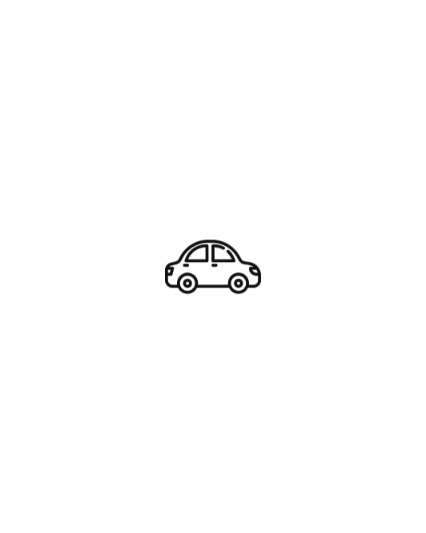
void draw(SkCanvas* canvas) {
    SkPaint paint;
    paint.setAntiAlias(true);
    canvas->clear(0xFFFFFFFF);
    canvas->drawImageRect(SkImages::DeferredFromEncodedData(SkData::MakeFromFileName("img1.png")), SkRect::MakeXYWH(165, 239, 96, 56), SkSamplingOptions());
}
